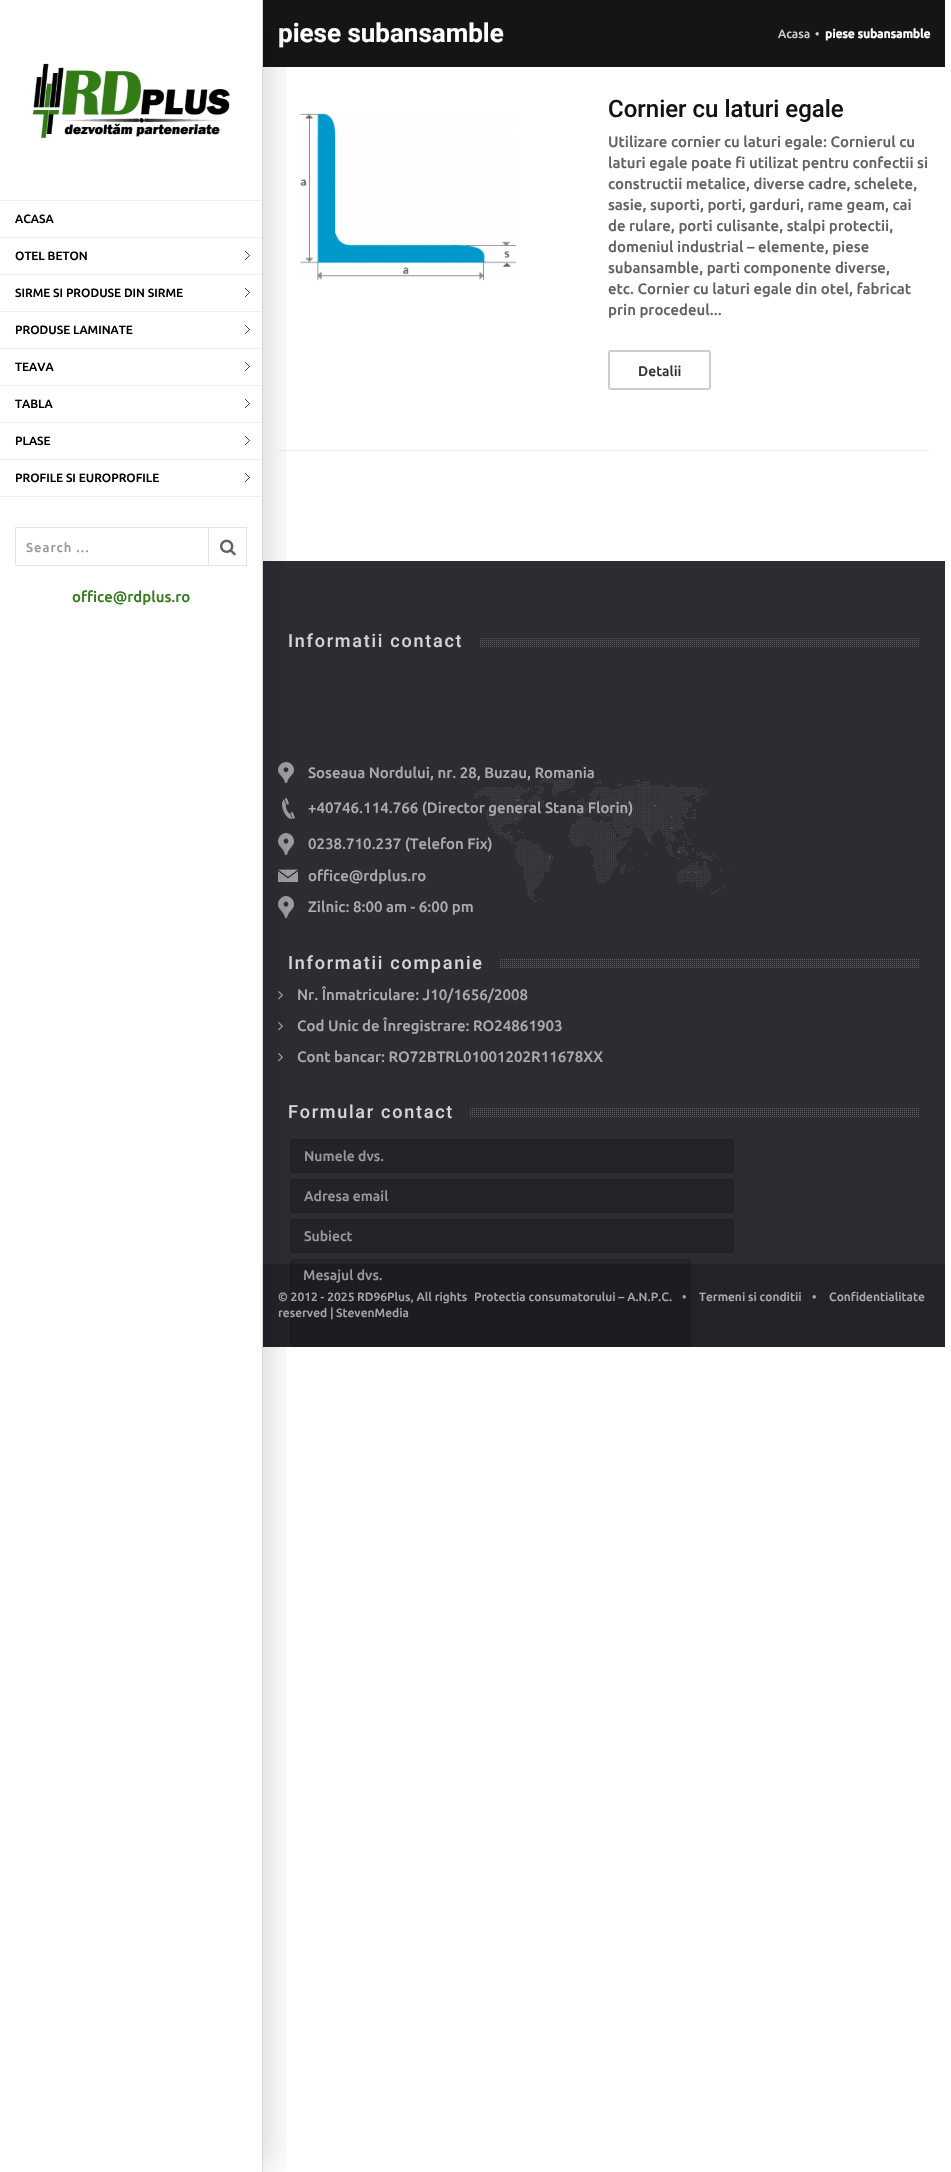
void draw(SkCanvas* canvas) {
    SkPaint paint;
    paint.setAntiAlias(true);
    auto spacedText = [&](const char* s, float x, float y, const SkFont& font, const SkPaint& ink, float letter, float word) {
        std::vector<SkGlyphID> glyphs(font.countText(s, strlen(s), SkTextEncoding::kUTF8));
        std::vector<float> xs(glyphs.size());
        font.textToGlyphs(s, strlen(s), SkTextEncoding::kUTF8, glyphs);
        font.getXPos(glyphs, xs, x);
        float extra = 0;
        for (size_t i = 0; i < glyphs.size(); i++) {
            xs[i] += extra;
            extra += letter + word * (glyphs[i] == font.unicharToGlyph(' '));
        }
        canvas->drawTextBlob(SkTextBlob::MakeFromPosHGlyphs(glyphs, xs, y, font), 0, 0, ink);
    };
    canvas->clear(0xFFFFFFFF);
    paint.setColor(0xFF151515);
    canvas->drawRect(SkRect::MakeXYWH(263, 0, 682, 67), paint);
    SkFont font1(fontMgr->matchFamilyStyle("Roboto", SkFontStyle::Bold()), 26);
    font1.setSubpixel(true);
    paint.setColor(0xFFFFFFFF);
    canvas->drawString("piese subansamble", 278, 42, font1, paint);
    SkFont font2(fontMgr->matchFamilyStyle("Ubuntu", SkFontStyle(500, SkFontStyle::kNormal_Width, SkFontStyle::kUpright_Slant)), 12);
    font2.setSubpixel(true);
    paint.setColor(0xFFCCCCCC);
    canvas->drawString("Acasa", 778, 38, font2, paint);
    canvas->drawString("•", 815, 38, font2, paint);
    SkFont font3(fontMgr->matchFamilyStyle("Ubuntu", SkFontStyle::Bold()), 12);
    font3.setSubpixel(true);
    paint.setColor(0xFFFFFFFF);
    canvas->drawString("piese subansamble", 825, 38, font3, paint);
    paint.setColor(0xFFEEEEEE);
    canvas->drawRect(SkRect::MakeXYWH(278, 450, 652, 1), paint);
    canvas->drawImageRect(SkImages::DeferredFromEncodedData(SkData::MakeFromFileName("img4.png")), SkRect::MakeXYWH(300, 113, 217, 168), SkSamplingOptions());
    paint.setColor(0xFF2B2D33);
    canvas->drawRect(SkRect::MakeXYWH(263, 561, 682, 703), paint);
    canvas->drawImageRect(SkImages::DeferredFromEncodedData(SkData::MakeFromFileName("img7.png")), SkRect::MakeXYWH(278, 762, 19, 21), SkSamplingOptions());
    canvas->drawImageRect(SkImages::DeferredFromEncodedData(SkData::MakeFromFileName("img8.png")), SkRect::MakeXYWH(282, 798, 13, 21), SkSamplingOptions());
    canvas->drawImageRect(SkImages::DeferredFromEncodedData(SkData::MakeFromFileName("img9.png")), SkRect::MakeXYWH(278, 833, 19, 22), SkSamplingOptions());
    canvas->drawImageRect(SkImages::DeferredFromEncodedData(SkData::MakeFromFileName("img10.png")), SkRect::MakeXYWH(278, 869, 20, 13), SkSamplingOptions());
    canvas->drawImageRect(SkImages::DeferredFromEncodedData(SkData::MakeFromFileName("img9.png")), SkRect::MakeXYWH(278, 896, 19, 22), SkSamplingOptions());
    canvas->drawImageRect(SkImages::DeferredFromEncodedData(SkData::MakeFromFileName("img12.png")), SkRect::MakeXYWH(278, 991, 5, 9), SkSamplingOptions());
    canvas->drawImageRect(SkImages::DeferredFromEncodedData(SkData::MakeFromFileName("img12.png")), SkRect::MakeXYWH(278, 1022, 5, 9), SkSamplingOptions());
    canvas->drawImageRect(SkImages::DeferredFromEncodedData(SkData::MakeFromFileName("img12.png")), SkRect::MakeXYWH(278, 1053, 5, 9), SkSamplingOptions());
    paint.setColor(0xFF222429);
    canvas->drawRoundRect(SkRect::MakeXYWH(291, 1140, 442, 32), 2, 2, paint);
    paint.setStyle(SkPaint::kStroke_Style);
    paint.setStrokeWidth(2);
    paint.setColor(0xFF202226);
    canvas->drawRoundRect(SkRect::MakeXYWH(291, 1140, 442, 32), 2, 2, paint);
    paint.setStyle(SkPaint::kFill_Style);
    paint.setColor(0xFF222429);
    canvas->drawRoundRect(SkRect::MakeXYWH(291, 1180, 442, 32), 2, 2, paint);
    paint.setStyle(SkPaint::kStroke_Style);
    paint.setColor(0xFF202226);
    canvas->drawRoundRect(SkRect::MakeXYWH(291, 1180, 442, 32), 2, 2, paint);
    paint.setStyle(SkPaint::kFill_Style);
    paint.setColor(0xFF222429);
    canvas->drawRoundRect(SkRect::MakeXYWH(291, 1220, 442, 32), 2, 2, paint);
    paint.setStyle(SkPaint::kStroke_Style);
    paint.setColor(0xFF202226);
    canvas->drawRoundRect(SkRect::MakeXYWH(291, 1220, 442, 32), 2, 2, paint);
    paint.setStyle(SkPaint::kFill_Style);
    paint.setColor(0xFF222429);
    canvas->drawRect(SkRect::MakeXYWH(263, 1264, 682, 83), paint);
    paint.setColor(0x33000000);
    canvas->drawPath(SkPathBuilder().moveTo(293, 1260).lineTo(688, 1260).cubicTo(689, 1260, 690, 1261, 690, 1262).lineTo(690, 1347).lineTo(291, 1347).lineTo(291, 1262).cubicTo(291, 1261, 292, 1260, 293, 1260).close().detach(), paint);
    canvas->save();
    canvas->clipRect(SkRect::MakeXYWH(263, 0, 682, 1347));
    paint.setStyle(SkPaint::kStroke_Style);
    paint.setStrokeWidth(1);
    paint.setColor(0x40000000);
    canvas->drawRoundRect(SkRect::MakeXYWH(290.5f, 1259.5f, 400, 193), 2.5f, 2.5f, paint);
    canvas->restore();
    canvas->save();
    canvas->clipRect(SkRect::MakeXYWH(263, 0, 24, 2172));
    paint.setStyle(SkPaint::kFill_Style);
    paint.setColor(0x24000000);
    paint.setMaskFilter(SkMaskFilter::MakeBlur(kNormal_SkBlurStyle, 15));
    canvas->drawRect(SkRect::MakeXYWH(12, 2, 259, 2168), paint);
    paint.setMaskFilter(nullptr);
    canvas->restore();
    paint.setColor(0xFFD6D6D6);
    canvas->drawRect(SkRect::MakeXYWH(262, 0, 1, 2172), paint);
    canvas->drawImageRect(SkImages::DeferredFromEncodedData(SkData::MakeFromFileName("img1.png")), SkRect::MakeXYWH(32, 63, 198, 76), SkSamplingOptions());
    paint.setColor(0xFFEEEEEE);
    canvas->drawRect(SkRect::MakeXYWH(0, 200, 262, 1), paint);
    canvas->drawRect(SkRect::MakeXYWH(0, 237, 262, 1), paint);
    paint.setColor(0xFF000000);
    canvas->drawString("ACASA", 15, 223, font2, paint);
    canvas->drawImageRect(SkImages::DeferredFromEncodedData(SkData::MakeFromFileName("img2.png")), SkRect::MakeXYWH(245, 251, 5, 9), SkSamplingOptions());
    paint.setColor(0xFFEEEEEE);
    canvas->drawRect(SkRect::MakeXYWH(0, 274, 262, 1), paint);
    paint.setColor(0xFF000000);
    canvas->drawString("OTEL BETON", 15, 260, font2, paint);
    canvas->drawImageRect(SkImages::DeferredFromEncodedData(SkData::MakeFromFileName("img2.png")), SkRect::MakeXYWH(245, 288, 5, 9), SkSamplingOptions());
    paint.setColor(0xFFEEEEEE);
    canvas->drawRect(SkRect::MakeXYWH(0, 311, 262, 1), paint);
    paint.setColor(0xFF000000);
    canvas->drawString("SIRME SI PRODUSE DIN SIRME", 15, 297, font2, paint);
    canvas->drawImageRect(SkImages::DeferredFromEncodedData(SkData::MakeFromFileName("img2.png")), SkRect::MakeXYWH(245, 325, 5, 9), SkSamplingOptions());
    paint.setColor(0xFFEEEEEE);
    canvas->drawRect(SkRect::MakeXYWH(0, 348, 262, 1), paint);
    paint.setColor(0xFF000000);
    canvas->drawString("PRODUSE LAMINATE", 15, 334, font2, paint);
    canvas->drawImageRect(SkImages::DeferredFromEncodedData(SkData::MakeFromFileName("img2.png")), SkRect::MakeXYWH(245, 362, 5, 9), SkSamplingOptions());
    paint.setColor(0xFFEEEEEE);
    canvas->drawRect(SkRect::MakeXYWH(0, 385, 262, 1), paint);
    paint.setColor(0xFF000000);
    canvas->drawString("TEAVA", 15, 371, font2, paint);
    canvas->drawImageRect(SkImages::DeferredFromEncodedData(SkData::MakeFromFileName("img2.png")), SkRect::MakeXYWH(245, 399, 5, 9), SkSamplingOptions());
    paint.setColor(0xFFEEEEEE);
    canvas->drawRect(SkRect::MakeXYWH(0, 422, 262, 1), paint);
    paint.setColor(0xFF000000);
    canvas->drawString("TABLA", 15, 408, font2, paint);
    canvas->drawImageRect(SkImages::DeferredFromEncodedData(SkData::MakeFromFileName("img2.png")), SkRect::MakeXYWH(245, 436, 5, 9), SkSamplingOptions());
    paint.setColor(0xFFEEEEEE);
    canvas->drawRect(SkRect::MakeXYWH(0, 459, 262, 1), paint);
    paint.setColor(0xFF000000);
    canvas->drawString("PLASE", 15, 445, font2, paint);
    canvas->drawImageRect(SkImages::DeferredFromEncodedData(SkData::MakeFromFileName("img2.png")), SkRect::MakeXYWH(245, 473, 5, 9), SkSamplingOptions());
    paint.setColor(0xFFEEEEEE);
    canvas->drawRect(SkRect::MakeXYWH(0, 496, 262, 1), paint);
    paint.setColor(0xFF000000);
    canvas->drawString("PROFILE SI EUROPROFILE", 15, 482, font2, paint);
    paint.setStyle(SkPaint::kStroke_Style);
    paint.setColor(0xFFE3E3E3);
    canvas->drawRect(SkRect::MakeXYWH(15.5f, 527.5f, 231, 38), paint);
    SkFont font4(fontMgr->matchFamilyStyle("Ubuntu", SkFontStyle(500, SkFontStyle::kNormal_Width, SkFontStyle::kUpright_Slant)), 13);
    font4.setSubpixel(true);
    paint.setStyle(SkPaint::kFill_Style);
    paint.setColor(0xFF999999);
    spacedText("Search ...", 26, 552, font4, paint, 1, 0);
    paint.setColor(0xFFE3E3E3);
    canvas->drawRect(SkRect::MakeXYWH(208, 527, 1, 39), paint);
    canvas->drawImageRect(SkImages::DeferredFromEncodedData(SkData::MakeFromFileName("img3.png")), SkRect::MakeXYWH(220, 539, 16, 17), SkSamplingOptions());
    SkFont font5(fontMgr->matchFamilyStyle("Ubuntu", SkFontStyle(500, SkFontStyle::kNormal_Width, SkFontStyle::kUpright_Slant)), 15);
    font5.setSubpixel(true);
    paint.setColor(0xFF377B1F);
    canvas->drawString("office@rdplus.ro", 72, 602, font5, paint);
    SkFont font6(fontMgr->matchFamilyStyle("Roboto", SkFontStyle(500, SkFontStyle::kNormal_Width, SkFontStyle::kUpright_Slant)), 24);
    font6.setSubpixel(true);
    paint.setColor(0xFF121212);
    canvas->drawString("Cornier cu laturi egale", 608, 117, font6, paint);
    paint.setColor(0xFF626262);
    canvas->drawString("Utilizare cornier cu laturi egale: Cornierul cu", 608, 147, font5, paint);
    canvas->drawString("laturi egale poate fi utilizat pentru confectii si", 608, 168, font5, paint);
    canvas->drawString("constructii metalice, diverse cadre, schelete,", 608, 189, font5, paint);
    canvas->drawString("sasie, suporti, porti, garduri, rame geam, cai", 608, 210, font5, paint);
    canvas->drawString("de rulare, porti culisante, stalpi protectii,", 608, 231, font5, paint);
    canvas->drawString("domeniul industrial – elemente, piese", 608, 252, font5, paint);
    canvas->drawString("subansamble, parti componente diverse,", 608, 273, font5, paint);
    canvas->drawString("etc. Cornier cu laturi egale din otel, fabricat", 608, 294, font5, paint);
    canvas->drawString("prin procedeul...", 608, 315, font5, paint);
    paint.setStyle(SkPaint::kStroke_Style);
    paint.setStrokeWidth(2);
    paint.setColor(0xFFCCCCCC);
    canvas->drawRoundRect(SkRect::MakeXYWH(609, 351, 101, 38), 2, 2, paint);
    SkFont font7(fontMgr->matchFamilyStyle("Ubuntu", SkFontStyle(500, SkFontStyle::kNormal_Width, SkFontStyle::kUpright_Slant)), 14);
    font7.setSubpixel(true);
    paint.setStyle(SkPaint::kFill_Style);
    paint.setColor(0xFF333333);
    canvas->drawString("Detalii", 638, 376, font7, paint);
    canvas->drawImageRect(SkImages::DeferredFromEncodedData(SkData::MakeFromFileName("img5.png")), SkRect::MakeXYWH(480, 638, 439, 9), SkSamplingOptions());
    SkFont font8(fontMgr->matchFamilyStyle("Roboto", SkFontStyle(500, SkFontStyle::kNormal_Width, SkFontStyle::kUpright_Slant)), 18);
    font8.setSubpixel(true);
    paint.setColor(0xFFD5D5D6);
    spacedText("Informatii contact", 288, 647, font8, paint, 1.75f, 0);
    canvas->drawImageRect(SkImages::DeferredFromEncodedData(SkData::MakeFromFileName("img6.png")), SkRect::MakeXYWH(474, 778, 260, 124), SkSamplingOptions());
    paint.setColor(0xFFAAABAD);
    canvas->drawString("Soseaua Nordului, nr. 28, Buzau, Romania", 308, 778, font5, paint);
    canvas->drawString("+40746.114.766 (Director general Stana Florin)", 308, 813, font5, paint);
    canvas->drawString("0238.710.237 (Telefon Fix)", 308, 849, font5, paint);
    canvas->drawString("office@rdplus.ro", 308, 881, font5, paint);
    canvas->drawString("Zilnic: 8:00 am - 6:00 pm", 308, 912, font5, paint);
    canvas->drawImageRect(SkImages::DeferredFromEncodedData(SkData::MakeFromFileName("img11.png")), SkRect::MakeXYWH(500, 959, 419, 9), SkSamplingOptions());
    paint.setColor(0xFFD5D5D6);
    spacedText("Informatii companie", 288, 969, font8, paint, 1.75f, 0);
    paint.setColor(0xFFAAABAD);
    canvas->drawString("Nr. Înmatriculare: J10/1656/2008", 297, 1000, font5, paint);
    canvas->drawString("Cod Unic de Înregistrare: RO24861903", 297, 1031, font5, paint);
    canvas->drawString("Cont bancar: RO72BTRL01001202R11678XX", 297, 1062, font5, paint);
    canvas->drawImageRect(SkImages::DeferredFromEncodedData(SkData::MakeFromFileName("img13.png")), SkRect::MakeXYWH(470, 1108, 449, 9), SkSamplingOptions());
    paint.setColor(0xFFD5D5D6);
    spacedText("Formular contact", 288, 1118, font8, paint, 1.75f, 0);
    paint.setColor(0xFF999999);
    canvas->drawString("Numele dvs.", 304, 1161, font7, paint);
    canvas->drawString("Adresa email", 304, 1201, font7, paint);
    canvas->drawString("Subiect", 304, 1241, font7, paint);
    canvas->drawString("Mesajul dvs.", 303, 1280, font7, paint);
    paint.setColor(0xFFA4A5A6);
    canvas->drawString("© 2012 - 2025", 278, 1301, font2, paint);
    canvas->drawString("RD96Plus, All rights", 357, 1301, font2, paint);
    canvas->drawString("Protectia consumatorului – A.N.P.C.", 474, 1301, font2, paint);
    canvas->drawString("•", 682, 1301, font2, paint);
    paint.setColor(0xFFAAABAD);
    canvas->drawString("Termeni si conditii", 699, 1301, font2, paint);
    canvas->drawString("•", 812, 1301, font2, paint);
    canvas->drawString("Confidentialitate", 829, 1301, font2, paint);
    paint.setColor(0xFFA4A5A6);
    canvas->drawString("reserved |", 278, 1317, font2, paint);
    canvas->drawString("StevenMedia", 336, 1317, font2, paint);
}
